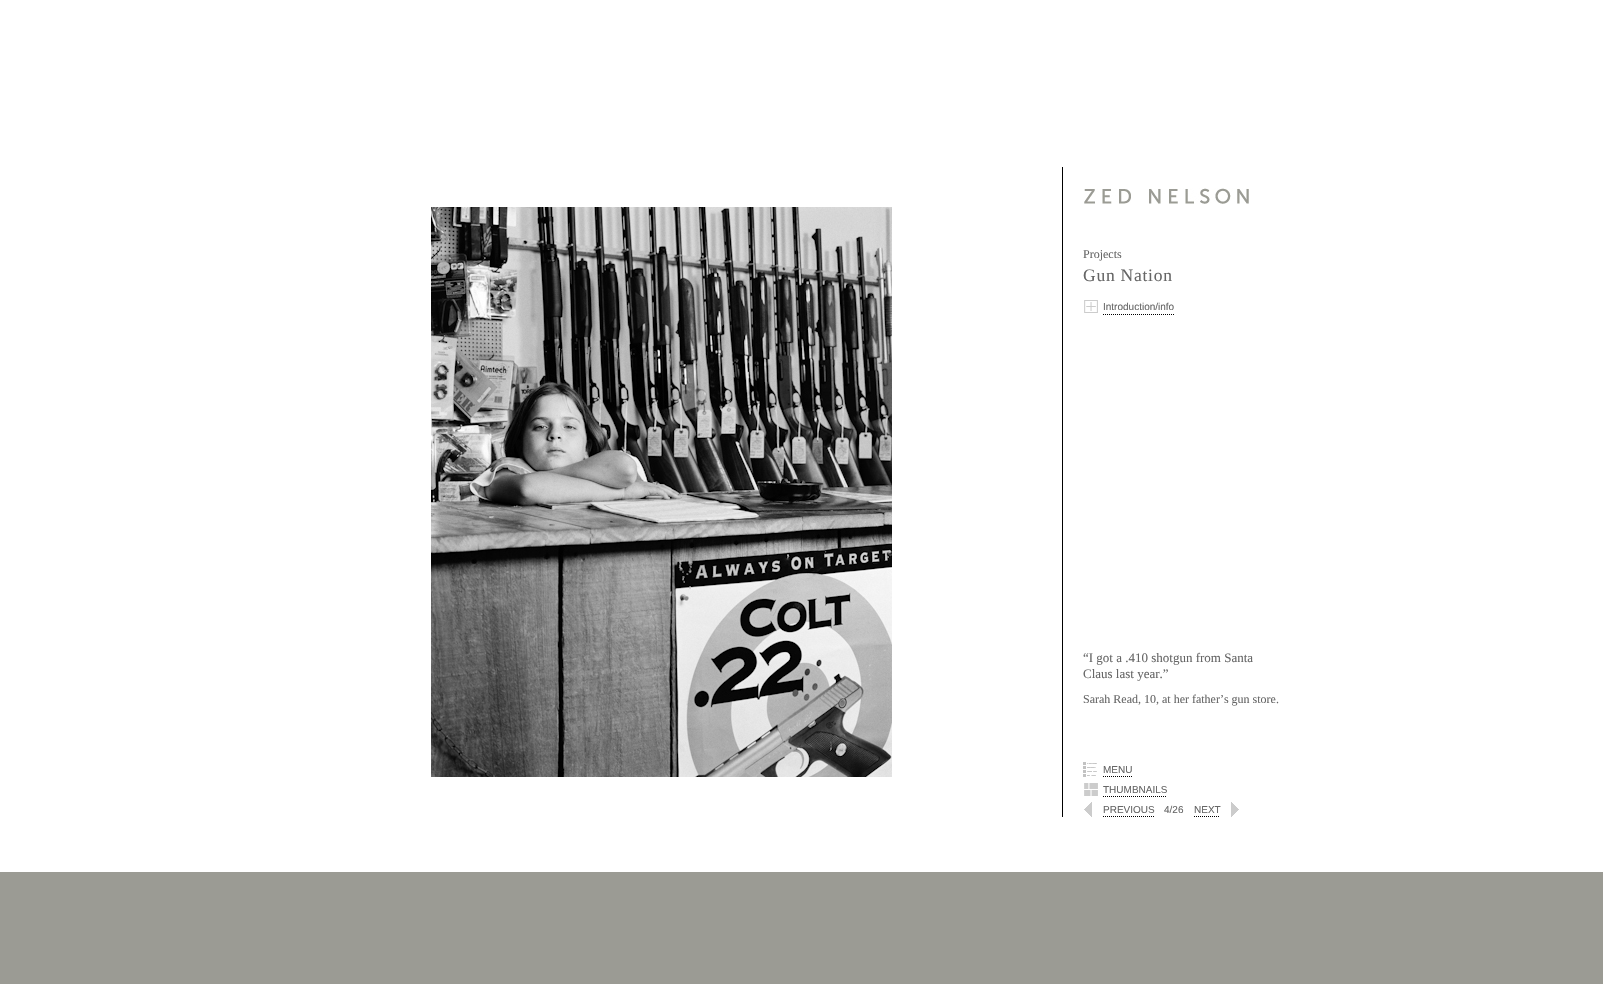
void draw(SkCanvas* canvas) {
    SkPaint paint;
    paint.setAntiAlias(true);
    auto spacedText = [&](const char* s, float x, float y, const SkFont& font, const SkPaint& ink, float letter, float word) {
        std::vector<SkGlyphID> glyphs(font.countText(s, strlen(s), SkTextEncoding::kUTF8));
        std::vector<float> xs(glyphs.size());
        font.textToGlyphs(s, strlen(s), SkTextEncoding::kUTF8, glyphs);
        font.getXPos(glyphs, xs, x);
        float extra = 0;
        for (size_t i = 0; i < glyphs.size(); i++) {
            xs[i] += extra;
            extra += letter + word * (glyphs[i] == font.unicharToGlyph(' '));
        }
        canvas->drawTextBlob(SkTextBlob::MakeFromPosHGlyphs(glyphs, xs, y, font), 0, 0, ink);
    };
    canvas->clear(0xFFFFFFFF);
    paint.setColor(0xFF9B9B94);
    canvas->drawRect(SkRect::MakeXYWH(0, 872, 1603, 112), paint);
    canvas->drawImageRect(SkImages::DeferredFromEncodedData(SkData::MakeFromFileName("img1.png")), SkRect::MakeXYWH(431, 207, 461, 570), SkSamplingOptions());
    paint.setColor(0xFF000000);
    canvas->drawRect(SkRect::MakeXYWH(1062, 167, 1, 650), paint);
    canvas->drawImageRect(SkImages::DeferredFromEncodedData(SkData::MakeFromFileName("img2.png")), SkRect::MakeXYWH(1084, 188, 165, 16), SkSamplingOptions());
    SkFont font1(fontMgr->matchFamilyStyle("Liberation Serif", SkFontStyle::Normal()), 12);
    font1.setSubpixel(true);
    paint.setColor(0xFF666666);
    canvas->drawString("Projects", 1083, 258, font1, paint);
    SkFont font2(fontMgr->matchFamilyStyle("Liberation Serif", SkFontStyle::Normal()), 17.5f);
    font2.setSubpixel(true);
    spacedText("Gun Nation", 1083, 281, font2, paint, 0.75f, 0);
    canvas->drawImageRect(SkImages::DeferredFromEncodedData(SkData::MakeFromFileName("img3.png")), SkRect::MakeXYWH(1084, 300, 14, 13), SkSamplingOptions());
    paint.setStyle(SkPaint::kStroke_Style);
    paint.setStrokeWidth(1);
    paint.setColor(0xFF000000);
    paint.setPathEffect(SkDashPathEffect::Make({{1, 1}}, 0));
    canvas->drawPath(SkPathBuilder().moveTo(1103, 314.5f).lineTo(1174, 314.5f).detach(), paint);
    paint.setPathEffect(nullptr);
    SkFont font3(fontMgr->matchFamilyStyle("Liberation Sans", SkFontStyle::Normal()), 10);
    font3.setSubpixel(true);
    paint.setStyle(SkPaint::kFill_Style);
    paint.setColor(0xFF666666);
    canvas->drawString("Introduction/info", 1103, 310, font3, paint);
    SkFont font4(fontMgr->matchFamilyStyle("Liberation Serif", SkFontStyle::Normal()), 13);
    font4.setSubpixel(true);
    canvas->drawString("“I got a .410 shotgun from Santa", 1083, 662, font4, paint);
    canvas->drawString("Claus last year.”", 1083, 678, font4, paint);
    canvas->drawString("Sarah Read, 10, at her father’s gun store.", 1083, 703, font1, paint);
    canvas->drawImageRect(SkImages::DeferredFromEncodedData(SkData::MakeFromFileName("img4.png")), SkRect::MakeXYWH(1083, 762, 14, 15), SkSamplingOptions());
    paint.setStyle(SkPaint::kStroke_Style);
    paint.setColor(0xFF000000);
    paint.setPathEffect(SkDashPathEffect::Make({{1, 1}}, 0));
    canvas->drawPath(SkPathBuilder().moveTo(1103, 776.5f).lineTo(1132, 776.5f).detach(), paint);
    paint.setPathEffect(nullptr);
    paint.setStyle(SkPaint::kFill_Style);
    paint.setColor(0xFF666666);
    canvas->drawString("MENU", 1103, 773, font3, paint);
    canvas->drawImageRect(SkImages::DeferredFromEncodedData(SkData::MakeFromFileName("img5.png")), SkRect::MakeXYWH(1084, 783, 14, 13), SkSamplingOptions());
    paint.setStyle(SkPaint::kStroke_Style);
    paint.setColor(0xFF000000);
    paint.setPathEffect(SkDashPathEffect::Make({{1, 1}}, 0));
    canvas->drawPath(SkPathBuilder().moveTo(1103, 796.5f).lineTo(1167, 796.5f).detach(), paint);
    paint.setPathEffect(nullptr);
    paint.setStyle(SkPaint::kFill_Style);
    paint.setColor(0xFF666666);
    canvas->drawString("THUMBNAILS", 1103, 793, font3, paint);
    canvas->drawImageRect(SkImages::DeferredFromEncodedData(SkData::MakeFromFileName("img6.png")), SkRect::MakeXYWH(1084, 802, 8, 15), SkSamplingOptions());
    paint.setStyle(SkPaint::kStroke_Style);
    paint.setColor(0xFF000000);
    paint.setPathEffect(SkDashPathEffect::Make({{1, 1}}, 0));
    canvas->drawPath(SkPathBuilder().moveTo(1103, 816.5f).lineTo(1154, 816.5f).detach(), paint);
    paint.setPathEffect(nullptr);
    paint.setStyle(SkPaint::kFill_Style);
    paint.setColor(0xFF666666);
    canvas->drawString("PREVIOUS", 1103, 813, font3, paint);
    canvas->drawString("4/26", 1164, 813, font3, paint);
    paint.setStyle(SkPaint::kStroke_Style);
    paint.setColor(0xFF000000);
    paint.setPathEffect(SkDashPathEffect::Make({{1, 1}}, 0));
    canvas->drawPath(SkPathBuilder().moveTo(1194, 816.5f).lineTo(1220, 816.5f).detach(), paint);
    paint.setPathEffect(nullptr);
    paint.setStyle(SkPaint::kFill_Style);
    paint.setColor(0xFF666666);
    canvas->drawString("NEXT", 1194, 813, font3, paint);
    canvas->drawImageRect(SkImages::DeferredFromEncodedData(SkData::MakeFromFileName("img7.png")), SkRect::MakeXYWH(1231, 802, 8, 15), SkSamplingOptions());
}
